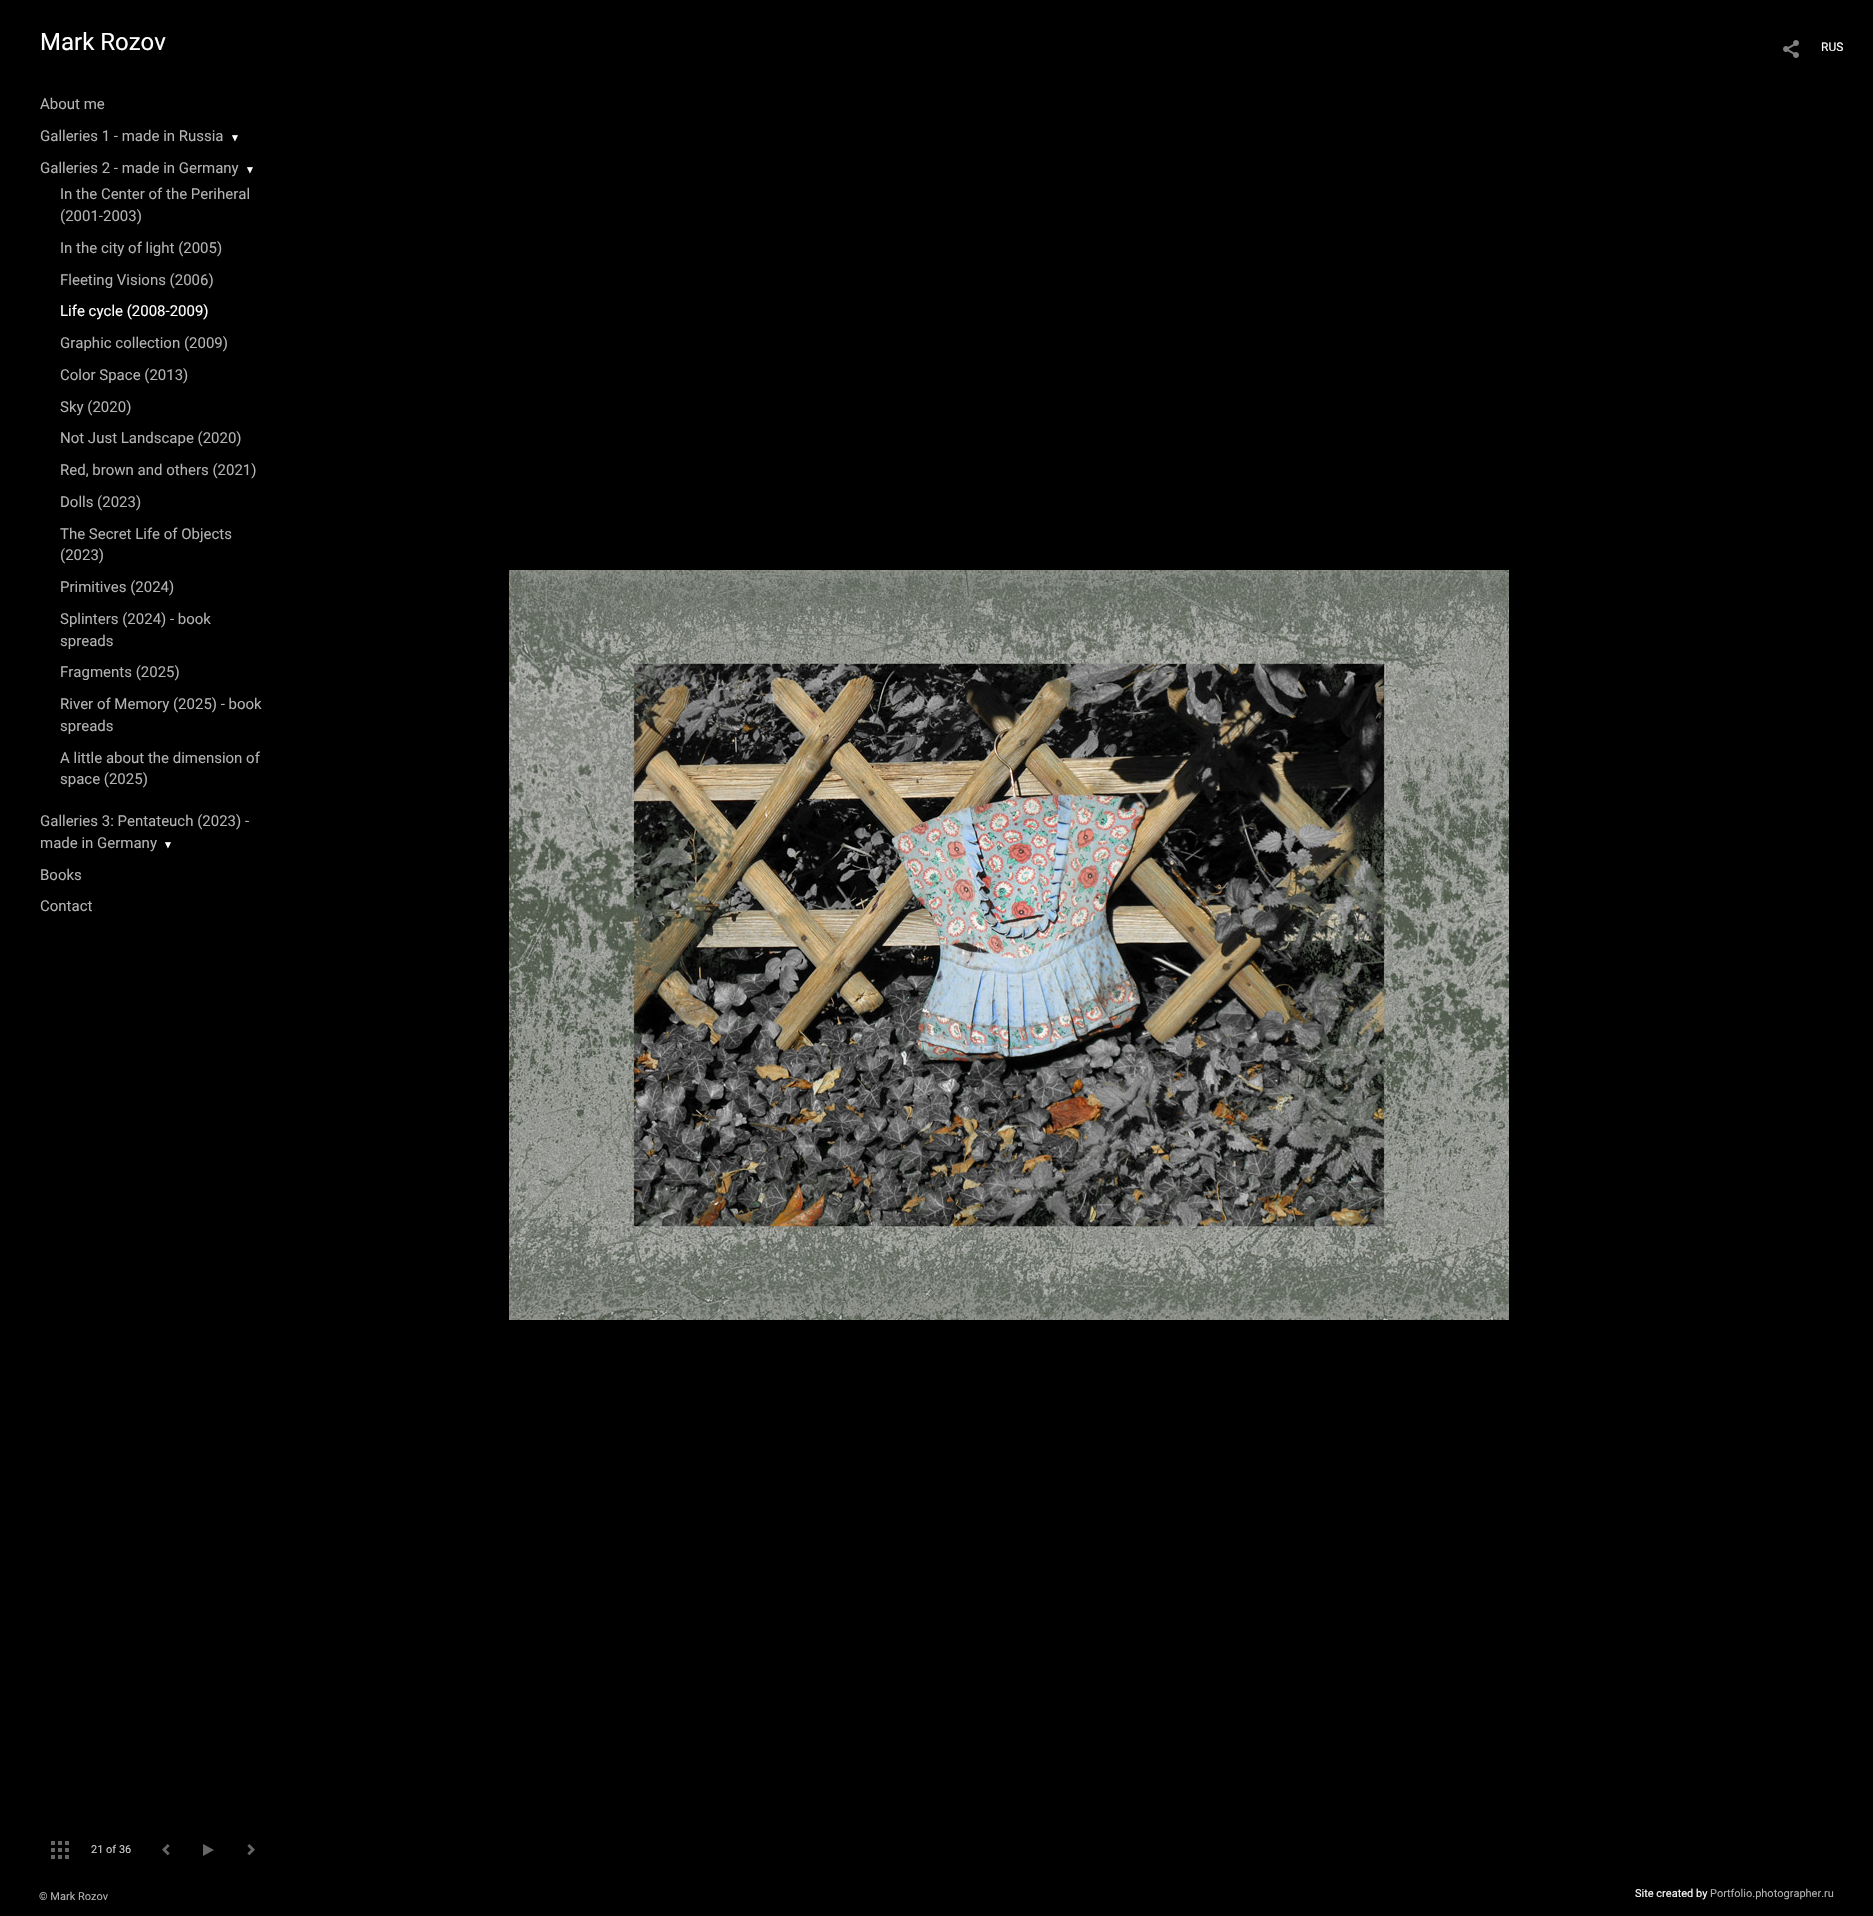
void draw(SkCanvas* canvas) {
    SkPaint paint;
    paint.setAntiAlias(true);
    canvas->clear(0xFF000000);
    SkFont font1(fontMgr->matchFamilyStyle("Roboto", SkFontStyle::Normal()), 24);
    font1.setSubpixel(true);
    paint.setColor(0xFFFFFFFF);
    canvas->drawString("Mark Rozov", 40, 50, font1, paint);
    SkFont font2(fontMgr->matchFamilyStyle("Roboto", SkFontStyle::Normal()), 15);
    font2.setSubpixel(true);
    paint.setColor(0xFFB3B3B3);
    canvas->drawString("About me", 40, 109, font2, paint);
    canvas->drawString("Galleries 1 - made in Russia", 40, 141, font2, paint);
    SkFont font3(fontMgr->matchFamilyStyle("Liberation Serif", SkFontStyle::Normal()), 10);
    font3.setSubpixel(true);
    paint.setColor(0xFFFFFFFF);
    canvas->drawString("▼", 230, 141, font3, paint);
    paint.setColor(0xFFB3B3B3);
    canvas->drawString("Galleries 2 - made in Germany", 40, 173, font2, paint);
    paint.setColor(0xFFFFFFFF);
    canvas->drawString("▼", 245, 173, font3, paint);
    paint.setColor(0xFFB3B3B3);
    canvas->drawString("In the Center of the Periheral", 60, 199, font2, paint);
    canvas->drawString("(2001-2003)", 60, 221, font2, paint);
    canvas->drawString("In the city of light (2005)", 60, 253, font2, paint);
    canvas->drawString("Fleeting Visions (2006)", 60, 285, font2, paint);
    paint.setColor(0xFFFFFFFF);
    canvas->drawString("Life cycle (2008-2009)", 60, 316, font2, paint);
    paint.setColor(0xFFB3B3B3);
    canvas->drawString("Graphic collection (2009)", 60, 348, font2, paint);
    canvas->drawString("Color Space (2013)", 60, 380, font2, paint);
    canvas->drawString("Sky (2020)", 60, 412, font2, paint);
    canvas->drawString("Not Just Landscape (2020)", 60, 443, font2, paint);
    canvas->drawString("Red, brown and others (2021)", 60, 475, font2, paint);
    canvas->drawString("Dolls (2023)", 60, 507, font2, paint);
    canvas->drawString("The Secret Life of Objects", 60, 539, font2, paint);
    canvas->drawString("(2023)", 60, 560, font2, paint);
    canvas->drawString("Primitives (2024)", 60, 592, font2, paint);
    canvas->drawString("Splinters (2024) - book", 60, 624, font2, paint);
    canvas->drawString("spreads", 60, 646, font2, paint);
    canvas->drawString("Fragments (2025)", 60, 677, font2, paint);
    canvas->drawString("River of Memory (2025) - book", 60, 709, font2, paint);
    canvas->drawString("spreads", 60, 731, font2, paint);
    canvas->drawString("A little about the dimension of", 60, 763, font2, paint);
    canvas->drawString("space (2025)", 60, 784, font2, paint);
    canvas->drawString("Galleries 3: Pentateuch (2023) -", 40, 826, font2, paint);
    canvas->drawString("made in Germany", 40, 848, font2, paint);
    paint.setColor(0xFFFFFFFF);
    canvas->drawString("▼", 163, 848, font3, paint);
    paint.setColor(0xFFB3B3B3);
    canvas->drawString("Books", 40, 880, font2, paint);
    canvas->drawString("Contact", 40, 911, font2, paint);
    canvas->drawImageRect(SkImages::DeferredFromEncodedData(SkData::MakeFromFileName("img1.png")), SkRect::MakeXYWH(51, 1841, 18, 18), SkSamplingOptions());
    SkFont font4(fontMgr->matchFamilyStyle("Roboto", SkFontStyle::Normal()), 11);
    font4.setSubpixel(true);
    paint.setColor(0xFFCCCCCC);
    canvas->drawString("21 of 36", 91, 1853, font4, paint);
    canvas->drawImageRect(SkImages::DeferredFromEncodedData(SkData::MakeFromFileName("img2.png")), SkRect::MakeXYWH(162, 1844, 8, 12), SkSamplingOptions());
    paint.setColor(0xFF666666);
    canvas->drawPath(SkPathBuilder().moveTo(214, 1850).lineTo(203, 1856).lineTo(203, 1844).close().detach(), paint);
    canvas->drawImageRect(SkImages::DeferredFromEncodedData(SkData::MakeFromFileName("img3.png")), SkRect::MakeXYWH(247, 1844, 8, 12), SkSamplingOptions());
    canvas->drawImageRect(SkImages::DeferredFromEncodedData(SkData::MakeFromFileName("img4.png")), SkRect::MakeXYWH(1783, 40, 16, 18), SkSamplingOptions());
    SkFont font5(fontMgr->matchFamilyStyle("Roboto", SkFontStyle::Normal()), 12);
    font5.setSubpixel(true);
    paint.setColor(0xFFFFFFFF);
    canvas->drawString("RUS", 1821, 51, font5, paint);
    canvas->drawImageRect(SkImages::DeferredFromEncodedData(SkData::MakeFromFileName("img5.png")), SkRect::MakeXYWH(509, 570, 1000, 750), SkSamplingOptions());
    paint.setColor(0xFFB3B3B3);
    canvas->drawString("© Mark Rozov", 39, 1900, font4, paint);
    paint.setColor(0xFFFFFFFF);
    canvas->drawString("Site created by", 1635, 1897, font4, paint);
    paint.setColor(0xFFB3B3B3);
    canvas->drawString("Portfolio.photographer.ru", 1710, 1897, font4, paint);
}
